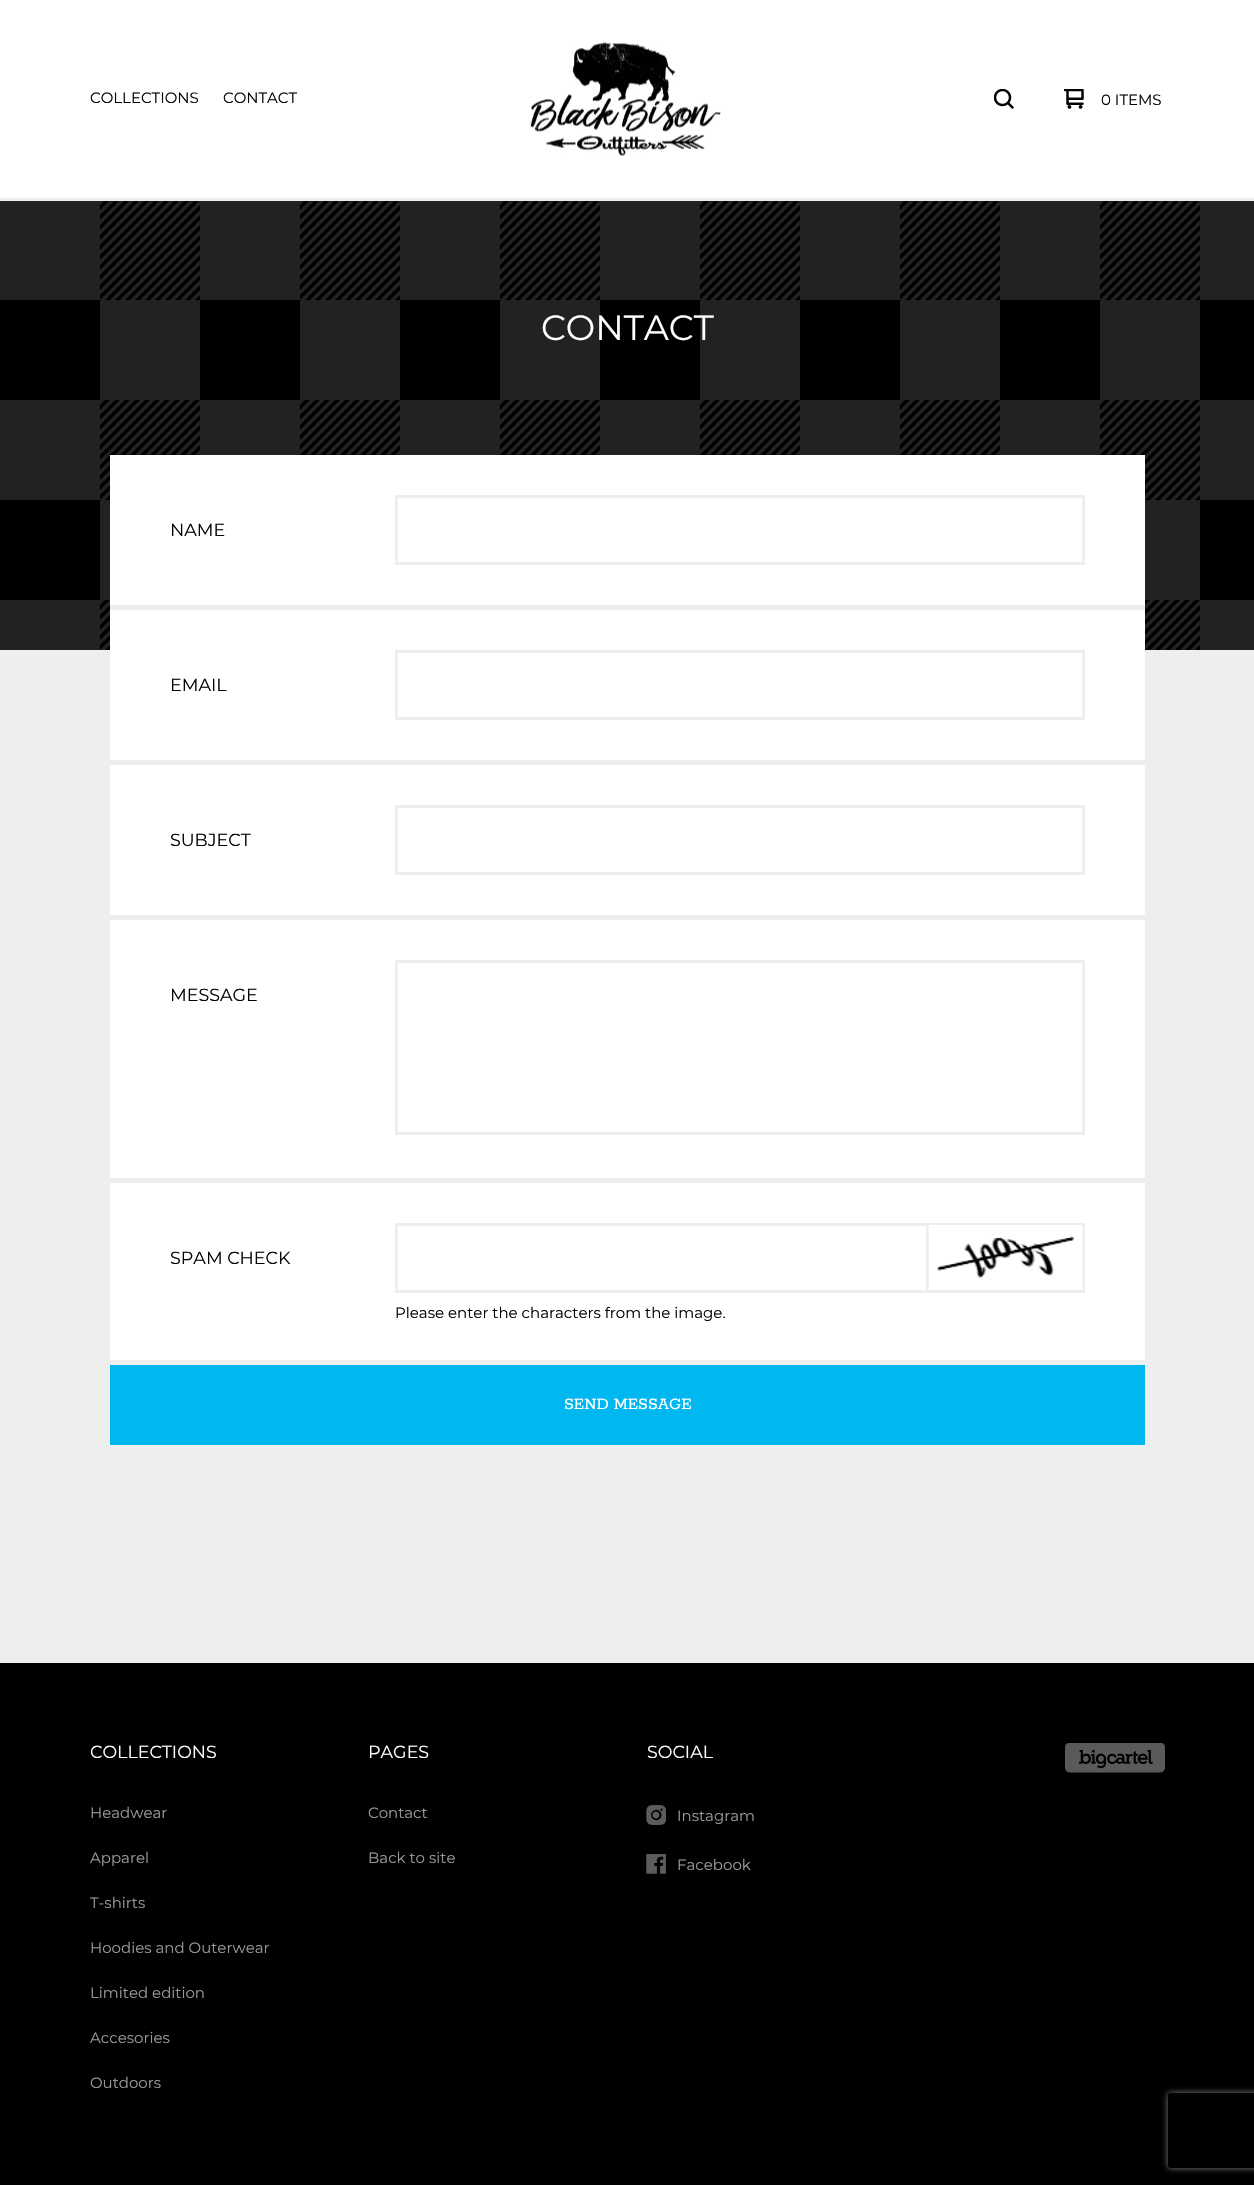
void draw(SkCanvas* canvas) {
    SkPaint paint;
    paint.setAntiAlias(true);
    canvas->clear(0xFFEEEEEE);
    paint.setColor(0xFFFFFFFF);
    canvas->drawRect(SkRect::MakeXYWH(0, 0, 1254, 198), paint);
    SkFont font1(fontMgr->matchFamilyStyle("Montserrat", SkFontStyle::Normal()), 15);
    font1.setSubpixel(true);
    paint.setColor(0xFF030303);
    canvas->drawString("COLLECTIONS", 90, 103, font1, paint);
    canvas->drawString("CONTACT", 223, 103, font1, paint);
    canvas->drawImageRect(SkImages::DeferredFromEncodedData(SkData::MakeFromFileName("img1.png")), SkRect::MakeXYWH(529, 42, 192, 114), SkSamplingOptions());
    canvas->drawImageRect(SkImages::DeferredFromEncodedData(SkData::MakeFromFileName("img2.png")), SkRect::MakeXYWH(994, 89, 20, 20), SkSamplingOptions());
    canvas->drawImageRect(SkImages::DeferredFromEncodedData(SkData::MakeFromFileName("img3.png")), SkRect::MakeXYWH(1064, 89, 20, 20), SkSamplingOptions());
    canvas->drawString("0 ITEMS", 1101, 105, font1, paint);
    paint.setColor(0xFF000000);
    canvas->drawRect(SkRect::MakeXYWH(0, 201, 1254, 449), paint);
    canvas->drawImageRect(SkImages::DeferredFromEncodedData(SkData::MakeFromFileName("img4.png")), SkRect::MakeXYWH(0, 201, 1254, 449), SkSamplingOptions());
    SkFont font2(fontMgr->matchFamilyStyle("Montserrat", SkFontStyle::Normal()), 35);
    font2.setSubpixel(true);
    paint.setColor(0xFFFFFFFF);
    canvas->drawString("CONTACT", 541, 340, font2, paint);
    canvas->drawRect(SkRect::MakeXYWH(110, 455, 1035, 905), paint);
    paint.setColor(0xFFEEEEEE);
    canvas->drawRect(SkRect::MakeXYWH(110, 605, 1035, 5), paint);
    SkFont font3(fontMgr->matchFamilyStyle("Montserrat", SkFontStyle::Normal()), 17.5f);
    font3.setSubpixel(true);
    paint.setColor(0xFF030303);
    canvas->drawString("NAME", 170, 536, font3, paint);
    paint.setStyle(SkPaint::kStroke_Style);
    paint.setStrokeWidth(3);
    paint.setColor(0xFFEEEEEE);
    canvas->drawRect(SkRect::MakeXYWH(396.5f, 496.5f, 687, 67), paint);
    paint.setStyle(SkPaint::kFill_Style);
    canvas->drawRect(SkRect::MakeXYWH(110, 760, 1035, 5), paint);
    paint.setColor(0xFF030303);
    canvas->drawString("EMAIL", 170, 691, font3, paint);
    paint.setStyle(SkPaint::kStroke_Style);
    paint.setColor(0xFFEEEEEE);
    canvas->drawRect(SkRect::MakeXYWH(396.5f, 651.5f, 687, 67), paint);
    paint.setStyle(SkPaint::kFill_Style);
    canvas->drawRect(SkRect::MakeXYWH(110, 915, 1035, 5), paint);
    paint.setColor(0xFF030303);
    canvas->drawString("SUBJECT", 170, 846, font3, paint);
    paint.setStyle(SkPaint::kStroke_Style);
    paint.setColor(0xFFEEEEEE);
    canvas->drawRect(SkRect::MakeXYWH(396.5f, 806.5f, 687, 67), paint);
    paint.setStyle(SkPaint::kFill_Style);
    canvas->drawRect(SkRect::MakeXYWH(110, 1178, 1035, 5), paint);
    paint.setColor(0xFF030303);
    canvas->drawString("MESSAGE", 170, 1001, font3, paint);
    paint.setStyle(SkPaint::kStroke_Style);
    paint.setColor(0xFFEEEEEE);
    canvas->drawRect(SkRect::MakeXYWH(396.5f, 961.5f, 687, 172), paint);
    paint.setStyle(SkPaint::kFill_Style);
    paint.setColor(0xFF030303);
    canvas->drawString("SPAM CHECK", 170, 1264, font3, paint);
    paint.setStyle(SkPaint::kStroke_Style);
    paint.setColor(0xFFEEEEEE);
    canvas->drawRect(SkRect::MakeXYWH(396.5f, 1224.5f, 687, 67), paint);
    paint.setStyle(SkPaint::kFill_Style);
    canvas->drawRect(SkRect::MakeXYWH(926, 1225, 3, 65), paint);
    canvas->drawImageRect(SkImages::DeferredFromEncodedData(SkData::MakeFromFileName("img5.png")), SkRect::MakeXYWH(928, 1225, 155, 65), SkSamplingOptions());
    paint.setColor(0xFF030303);
    canvas->drawString("Please enter the characters from the image.", 395, 1318, font1, paint);
    paint.setColor(0xFF00B7EF);
    canvas->drawRect(SkRect::MakeXYWH(110, 1365, 1035, 80), paint);
    SkFont font4(fontMgr->matchFamilyStyle("Rokkitt", SkFontStyle::Normal()), 17.5f);
    font4.setSubpixel(true);
    paint.setColor(0xFFFFFFFF);
    canvas->drawString("SEND MESSAGE", 564, 1409, font4, paint);
    paint.setColor(0xFF000000);
    canvas->drawRect(SkRect::MakeXYWH(0, 1663, 1254, 522), paint);
    canvas->save();
    canvas->clipPath(SkPathBuilder(SkPathFillType::kEvenOdd).moveTo(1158, 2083).lineTo(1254, 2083).lineTo(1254, 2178).lineTo(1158, 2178).close().moveTo(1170.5f, 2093).lineTo(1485.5f, 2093).cubicTo(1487, 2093, 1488, 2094, 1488, 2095.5f).lineTo(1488, 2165.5f).cubicTo(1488, 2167, 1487, 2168, 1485.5f, 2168).lineTo(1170.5f, 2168).cubicTo(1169, 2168, 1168, 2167, 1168, 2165.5f).lineTo(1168, 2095.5f).cubicTo(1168, 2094, 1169, 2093, 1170.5f, 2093).close().detach(), true);
    paint.setColor(0xFF808080);
    paint.setMaskFilter(SkMaskFilter::MakeBlur(kNormal_SkBlurStyle, 3));
    canvas->drawRoundRect(SkRect::MakeXYWH(1168, 2093, 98, 75), 2.5f, 2.5f, paint);
    paint.setMaskFilter(nullptr);
    canvas->restore();
    paint.setColor(0xFFFFFFFF);
    canvas->drawString("COLLECTIONS", 90, 1758, font3, paint);
    paint.setColor(0xFF999999);
    canvas->drawString("Headwear", 90, 1818, font1, paint);
    canvas->drawString("Apparel", 90, 1863, font1, paint);
    canvas->drawString("T-shirts", 90, 1908, font1, paint);
    canvas->drawString("Hoodies and Outerwear", 90, 1953, font1, paint);
    canvas->drawString("Limited edition", 90, 1998, font1, paint);
    canvas->drawString("Accesories", 90, 2043, font1, paint);
    canvas->drawString("Outdoors", 90, 2088, font1, paint);
    paint.setColor(0xFFFFFFFF);
    canvas->drawString("PAGES", 368, 1758, font3, paint);
    paint.setColor(0xFF999999);
    canvas->drawString("Contact", 368, 1818, font1, paint);
    canvas->drawString("Back to site", 368, 1863, font1, paint);
    paint.setColor(0xFFFFFFFF);
    canvas->drawString("SOCIAL", 647, 1758, font3, paint);
    canvas->drawImageRect(SkImages::DeferredFromEncodedData(SkData::MakeFromFileName("img6.png")), SkRect::MakeXYWH(646, 1805, 20, 20), SkSamplingOptions());
    paint.setColor(0xFF999999);
    canvas->drawString("Instagram", 677, 1821, font1, paint);
    canvas->drawImageRect(SkImages::DeferredFromEncodedData(SkData::MakeFromFileName("img7.png")), SkRect::MakeXYWH(646, 1854, 20, 20), SkSamplingOptions());
    canvas->drawString("Facebook", 677, 1870, font1, paint);
    canvas->drawImageRect(SkImages::DeferredFromEncodedData(SkData::MakeFromFileName("img8.png")), SkRect::MakeXYWH(1065, 1743, 100, 30), SkSamplingOptions());
}
